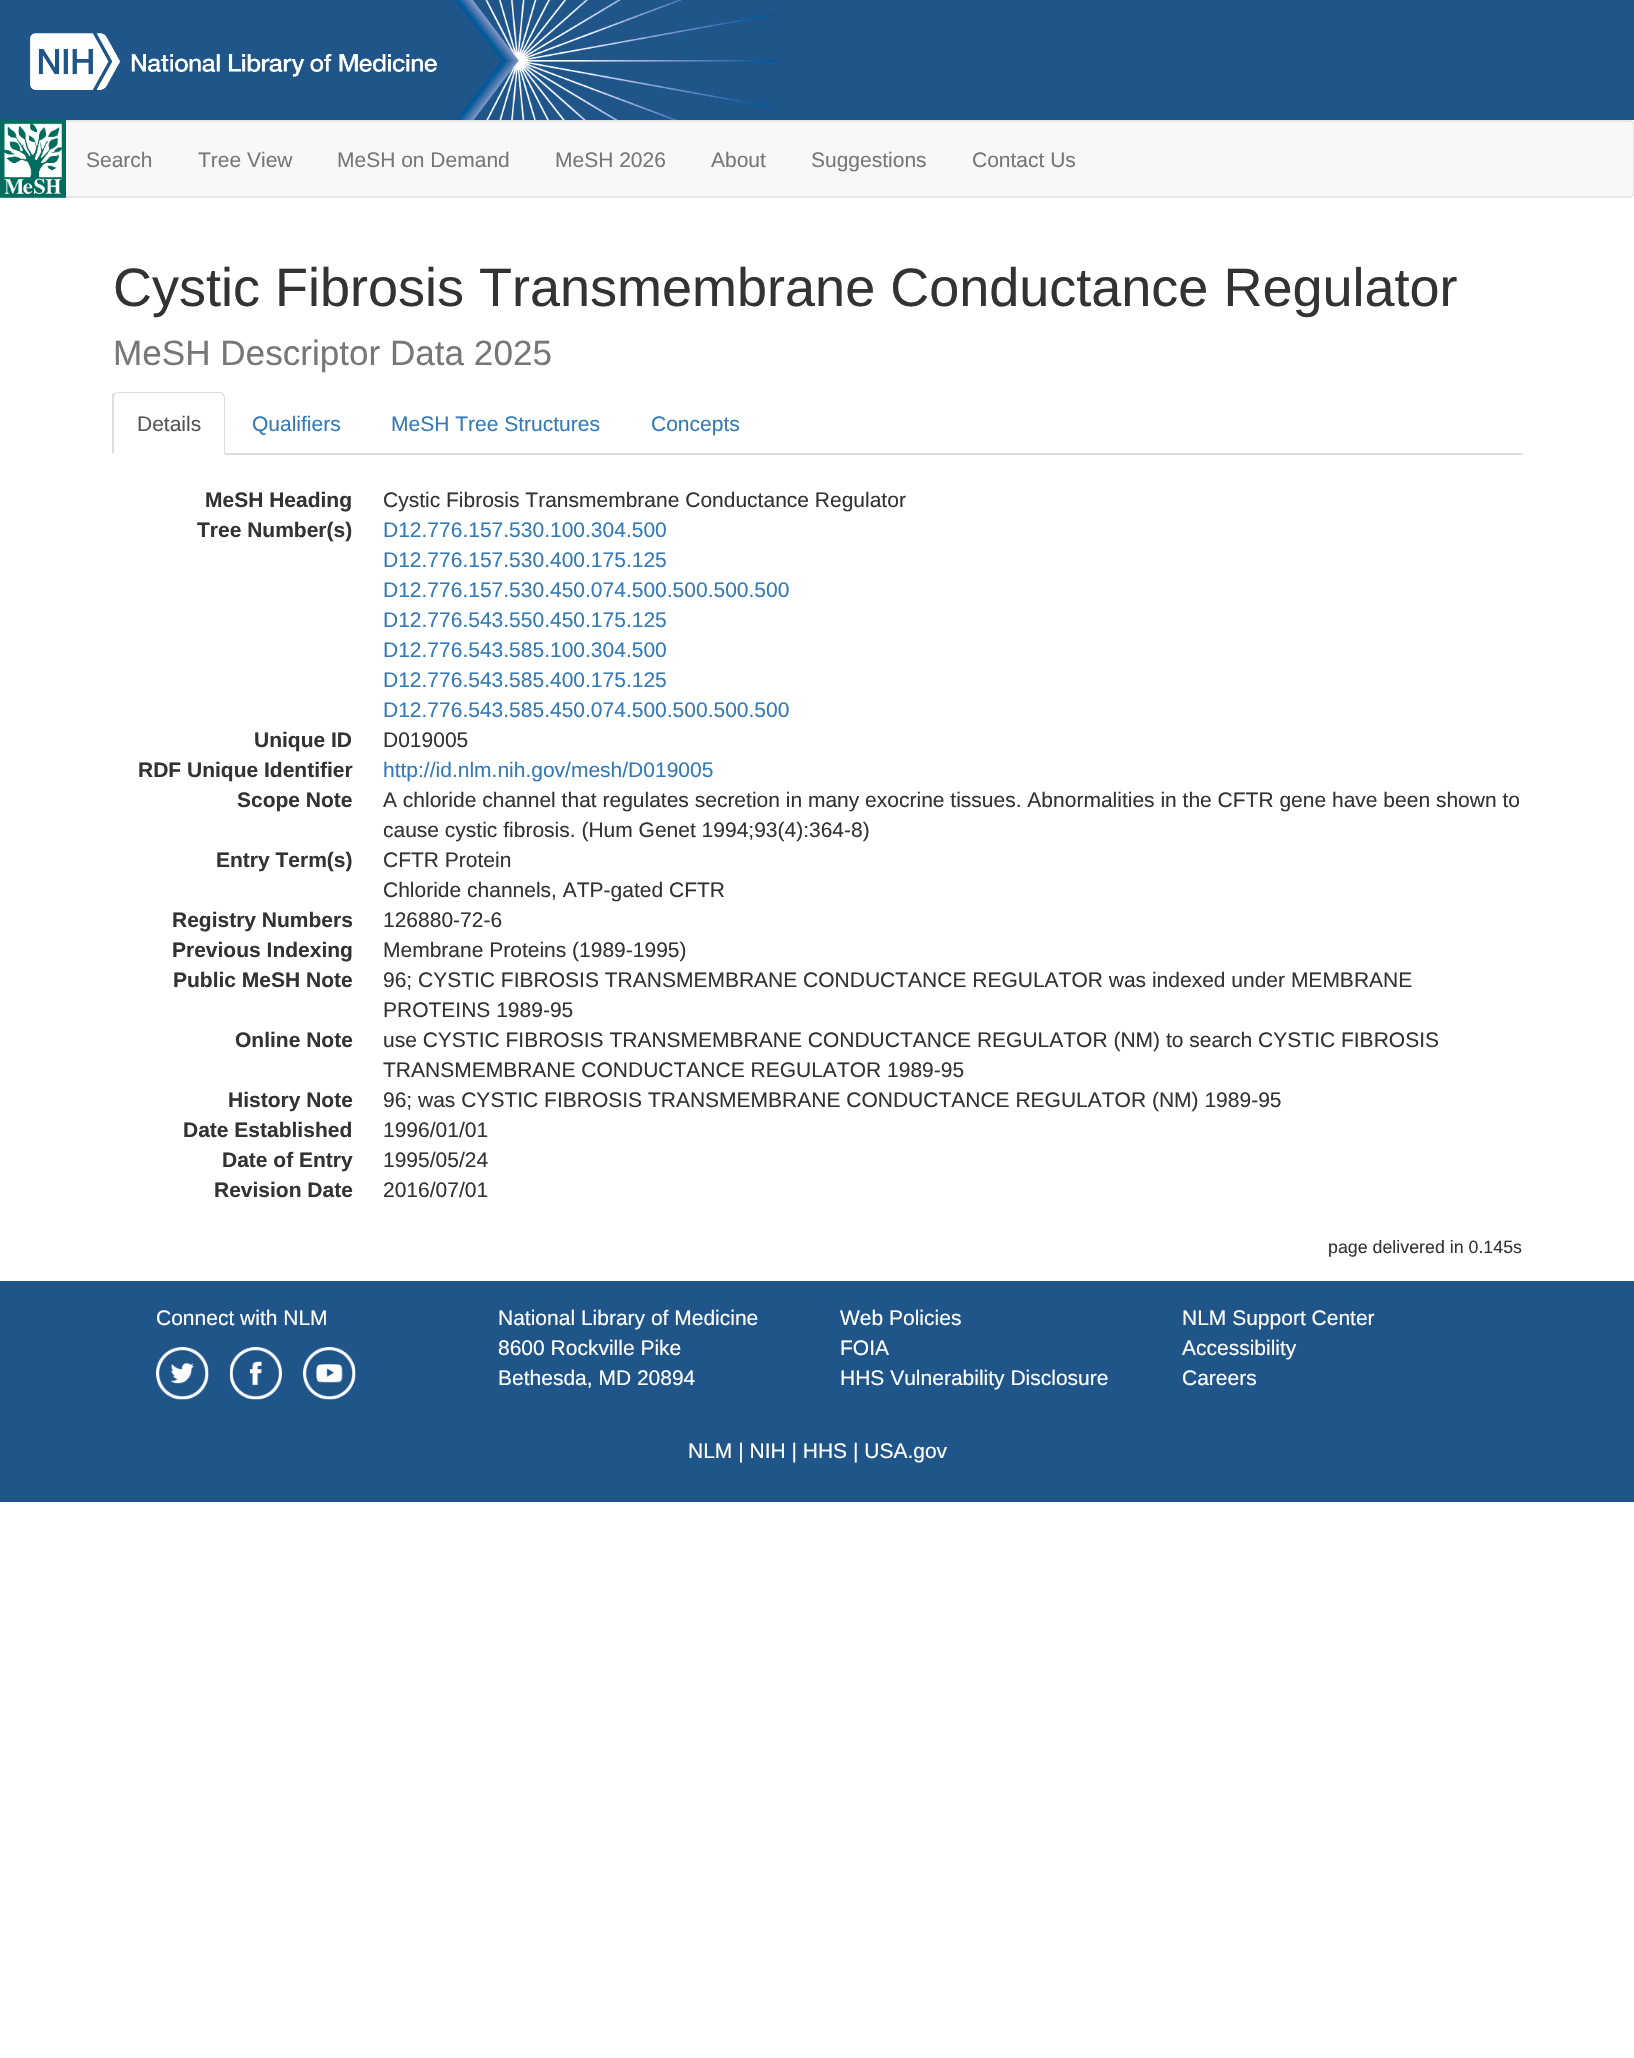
void draw(SkCanvas* canvas) {
    SkPaint paint;
    paint.setAntiAlias(true);
    canvas->clear(0xFFFFFFFF);
    paint.setColor(0xFF20558A);
    canvas->drawRect(SkRect::MakeXYWH(0, 0, 1634, 120), paint);
    canvas->drawImageRect(SkImages::DeferredFromEncodedData(SkData::MakeFromFileName("img1.png")), SkRect::MakeXYWH(455, 0, 324, 120), SkSamplingOptions());
    canvas->drawImageRect(SkImages::DeferredFromEncodedData(SkData::MakeFromFileName("img2.png")), SkRect::MakeXYWH(30, 33, 407, 57), SkSamplingOptions());
    paint.setColor(0xFFF8F8F8);
    canvas->drawRoundRect(SkRect::MakeXYWH(1, 121, 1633, 76), 5, 5, paint);
    paint.setStyle(SkPaint::kStroke_Style);
    paint.setStrokeWidth(2);
    paint.setColor(0xFFE7E7E7);
    canvas->drawRoundRect(SkRect::MakeXYWH(1, 121, 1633, 76), 5, 5, paint);
    canvas->drawImageRect(SkImages::DeferredFromEncodedData(SkData::MakeFromFileName("img3.png")), SkRect::MakeXYWH(0, 120, 66, 78), SkSamplingOptions());
    SkFont font1(fontMgr->matchFamilyStyle("Liberation Sans", SkFontStyle::Normal()), 21);
    font1.setSubpixel(true);
    paint.setStyle(SkPaint::kFill_Style);
    paint.setColor(0xFF777777);
    canvas->drawString("Search", 86, 167, font1, paint);
    canvas->drawString("Tree View", 198, 167, font1, paint);
    canvas->drawString("MeSH on Demand", 337, 167, font1, paint);
    canvas->drawString("MeSH 2026", 555, 167, font1, paint);
    canvas->drawString("About", 711, 167, font1, paint);
    canvas->drawString("Suggestions", 811, 167, font1, paint);
    canvas->drawString("Contact Us", 972, 167, font1, paint);
    SkFont font2(fontMgr->matchFamilyStyle("Liberation Sans", SkFontStyle::Normal()), 54);
    font2.setSubpixel(true);
    paint.setColor(0xFF333333);
    canvas->drawString("Cystic Fibrosis Transmembrane Conductance Regulator", 113, 306, font2, paint);
    SkFont font3(fontMgr->matchFamilyStyle("Liberation Sans", SkFontStyle::Normal()), 35.1f);
    font3.setSubpixel(true);
    paint.setColor(0xFF777777);
    canvas->drawString("MeSH Descriptor Data 2025", 113, 365, font3, paint);
    paint.setColor(0xFFDDDDDD);
    canvas->drawRect(SkRect::MakeXYWH(225, 453, 1298, 2), paint);
    canvas->drawPath(SkPathBuilder().moveTo(118, 392).lineTo(114, 393).lineTo(115, 394).cubicTo(116, 393, 117, 393, 118, 393).lineTo(219, 393).cubicTo(220, 393, 221, 393, 222, 394).lineTo(223, 393).cubicTo(222, 392, 220, 392, 219, 392).close().detach(), paint);
    canvas->drawPath(SkPathBuilder().moveTo(223, 393).cubicTo(224, 394, 225, 396, 225, 398).lineTo(225, 454).lineTo(224, 454).lineTo(224, 453).lineTo(224, 397).lineTo(222, 394).close().detach(), paint);
    canvas->drawPath(SkPathBuilder().moveTo(112, 395).lineTo(114, 393).lineTo(115, 394).cubicTo(115, 395, 114, 396, 114, 398).lineTo(114, 453).lineTo(112, 454).close().detach(), paint);
    paint.setColor(0xFF555555);
    canvas->drawString("Details", 137, 431, font1, paint);
    paint.setColor(0xFF337AB7);
    canvas->drawString("Qualifiers", 252, 431, font1, paint);
    canvas->drawString("MeSH Tree Structures", 391, 431, font1, paint);
    canvas->drawString("Concepts", 651, 431, font1, paint);
    SkFont font4(fontMgr->matchFamilyStyle("Liberation Sans", SkFontStyle::Bold()), 21);
    font4.setSubpixel(true);
    paint.setColor(0xFF333333);
    canvas->drawString("MeSH Heading", 205, 507, font4, paint);
    canvas->drawString("Cystic Fibrosis Transmembrane Conductance Regulator", 383, 507, font1, paint);
    canvas->drawString("Tree Number(s)", 197, 537, font4, paint);
    paint.setColor(0xFF337AB7);
    canvas->drawString("D12.776.157.530.100.304.500", 383, 537, font1, paint);
    canvas->drawString("D12.776.157.530.400.175.125", 383, 567, font1, paint);
    canvas->drawString("D12.776.157.530.450.074.500.500.500.500", 383, 597, font1, paint);
    canvas->drawString("D12.776.543.550.450.175.125", 383, 627, font1, paint);
    canvas->drawString("D12.776.543.585.100.304.500", 383, 657, font1, paint);
    canvas->drawString("D12.776.543.585.400.175.125", 383, 687, font1, paint);
    canvas->drawString("D12.776.543.585.450.074.500.500.500.500", 383, 717, font1, paint);
    paint.setColor(0xFF333333);
    canvas->drawString("Unique ID", 254, 747, font4, paint);
    canvas->drawString("D019005", 383, 747, font1, paint);
    canvas->drawString("RDF Unique Identifier", 138, 777, font4, paint);
    paint.setColor(0xFF337AB7);
    canvas->drawString("http://id.nlm.nih.gov/mesh/D019005", 383, 777, font1, paint);
    paint.setColor(0xFF333333);
    canvas->drawString("Scope Note", 237, 807, font4, paint);
    canvas->drawString("A chloride channel that regulates secretion in many exocrine tissues. Abnormalities in the CFTR gene have been shown to", 383, 807, font1, paint);
    canvas->drawString("cause cystic fibrosis. (Hum Genet 1994;93(4):364-8)", 383, 837, font1, paint);
    canvas->drawString("Entry Term(s)", 216, 867, font4, paint);
    canvas->drawString("CFTR Protein", 383, 867, font1, paint);
    canvas->drawString("Chloride channels, ATP-gated CFTR", 383, 897, font1, paint);
    canvas->drawString("Registry Numbers", 172, 927, font4, paint);
    canvas->drawString("126880-72-6", 383, 927, font1, paint);
    canvas->drawString("Previous Indexing", 172, 957, font4, paint);
    canvas->drawString("Membrane Proteins (1989-1995)", 383, 957, font1, paint);
    canvas->drawString("Public MeSH Note", 173, 987, font4, paint);
    canvas->drawString("96; CYSTIC FIBROSIS TRANSMEMBRANE CONDUCTANCE REGULATOR was indexed under MEMBRANE", 383, 987, font1, paint);
    canvas->drawString("PROTEINS 1989-95", 383, 1017, font1, paint);
    canvas->drawString("Online Note", 235, 1047, font4, paint);
    canvas->drawString("use CYSTIC FIBROSIS TRANSMEMBRANE CONDUCTANCE REGULATOR (NM) to search CYSTIC FIBROSIS", 383, 1047, font1, paint);
    canvas->drawString("TRANSMEMBRANE CONDUCTANCE REGULATOR 1989-95", 383, 1077, font1, paint);
    canvas->drawString("History Note", 228, 1107, font4, paint);
    canvas->drawString("96; was CYSTIC FIBROSIS TRANSMEMBRANE CONDUCTANCE REGULATOR (NM) 1989-95", 383, 1107, font1, paint);
    canvas->drawString("Date Established", 183, 1137, font4, paint);
    canvas->drawString("1996/01/01", 383, 1137, font1, paint);
    canvas->drawString("Date of Entry", 222, 1167, font4, paint);
    canvas->drawString("1995/05/24", 383, 1167, font1, paint);
    canvas->drawString("Revision Date", 214, 1197, font4, paint);
    canvas->drawString("2016/07/01", 383, 1197, font1, paint);
    SkFont font5(fontMgr->matchFamilyStyle("Liberation Sans", SkFontStyle::Normal()), 17.8f);
    font5.setSubpixel(true);
    canvas->drawString("page delivered in 0.145s", 1328, 1253, font5, paint);
    paint.setColor(0xFF20558A);
    canvas->drawRect(SkRect::MakeXYWH(0, 1281, 1634, 221), paint);
    paint.setColor(0xFFFFFFFF);
    canvas->drawString("Connect with NLM", 156, 1325, font1, paint);
    canvas->drawImageRect(SkImages::DeferredFromEncodedData(SkData::MakeFromFileName("img4.png")), SkRect::MakeXYWH(156, 1347, 53, 53), SkSamplingOptions());
    canvas->drawImageRect(SkImages::DeferredFromEncodedData(SkData::MakeFromFileName("img5.png")), SkRect::MakeXYWH(230, 1347, 52, 53), SkSamplingOptions());
    canvas->drawImageRect(SkImages::DeferredFromEncodedData(SkData::MakeFromFileName("img6.png")), SkRect::MakeXYWH(303, 1347, 53, 53), SkSamplingOptions());
    canvas->drawString("National Library of Medicine", 498, 1325, font1, paint);
    canvas->drawString("8600 Rockville Pike", 498, 1355, font1, paint);
    canvas->drawString("Bethesda, MD 20894", 498, 1385, font1, paint);
    canvas->drawString("Web Policies", 840, 1325, font1, paint);
    canvas->drawString("FOIA", 840, 1355, font1, paint);
    canvas->drawString("HHS Vulnerability Disclosure", 840, 1385, font1, paint);
    canvas->drawString("NLM Support Center", 1182, 1325, font1, paint);
    canvas->drawString("Accessibility", 1182, 1355, font1, paint);
    canvas->drawString("Careers", 1182, 1385, font1, paint);
    canvas->drawString("NLM | NIH | HHS | USA.gov", 688, 1458, font1, paint);
}
